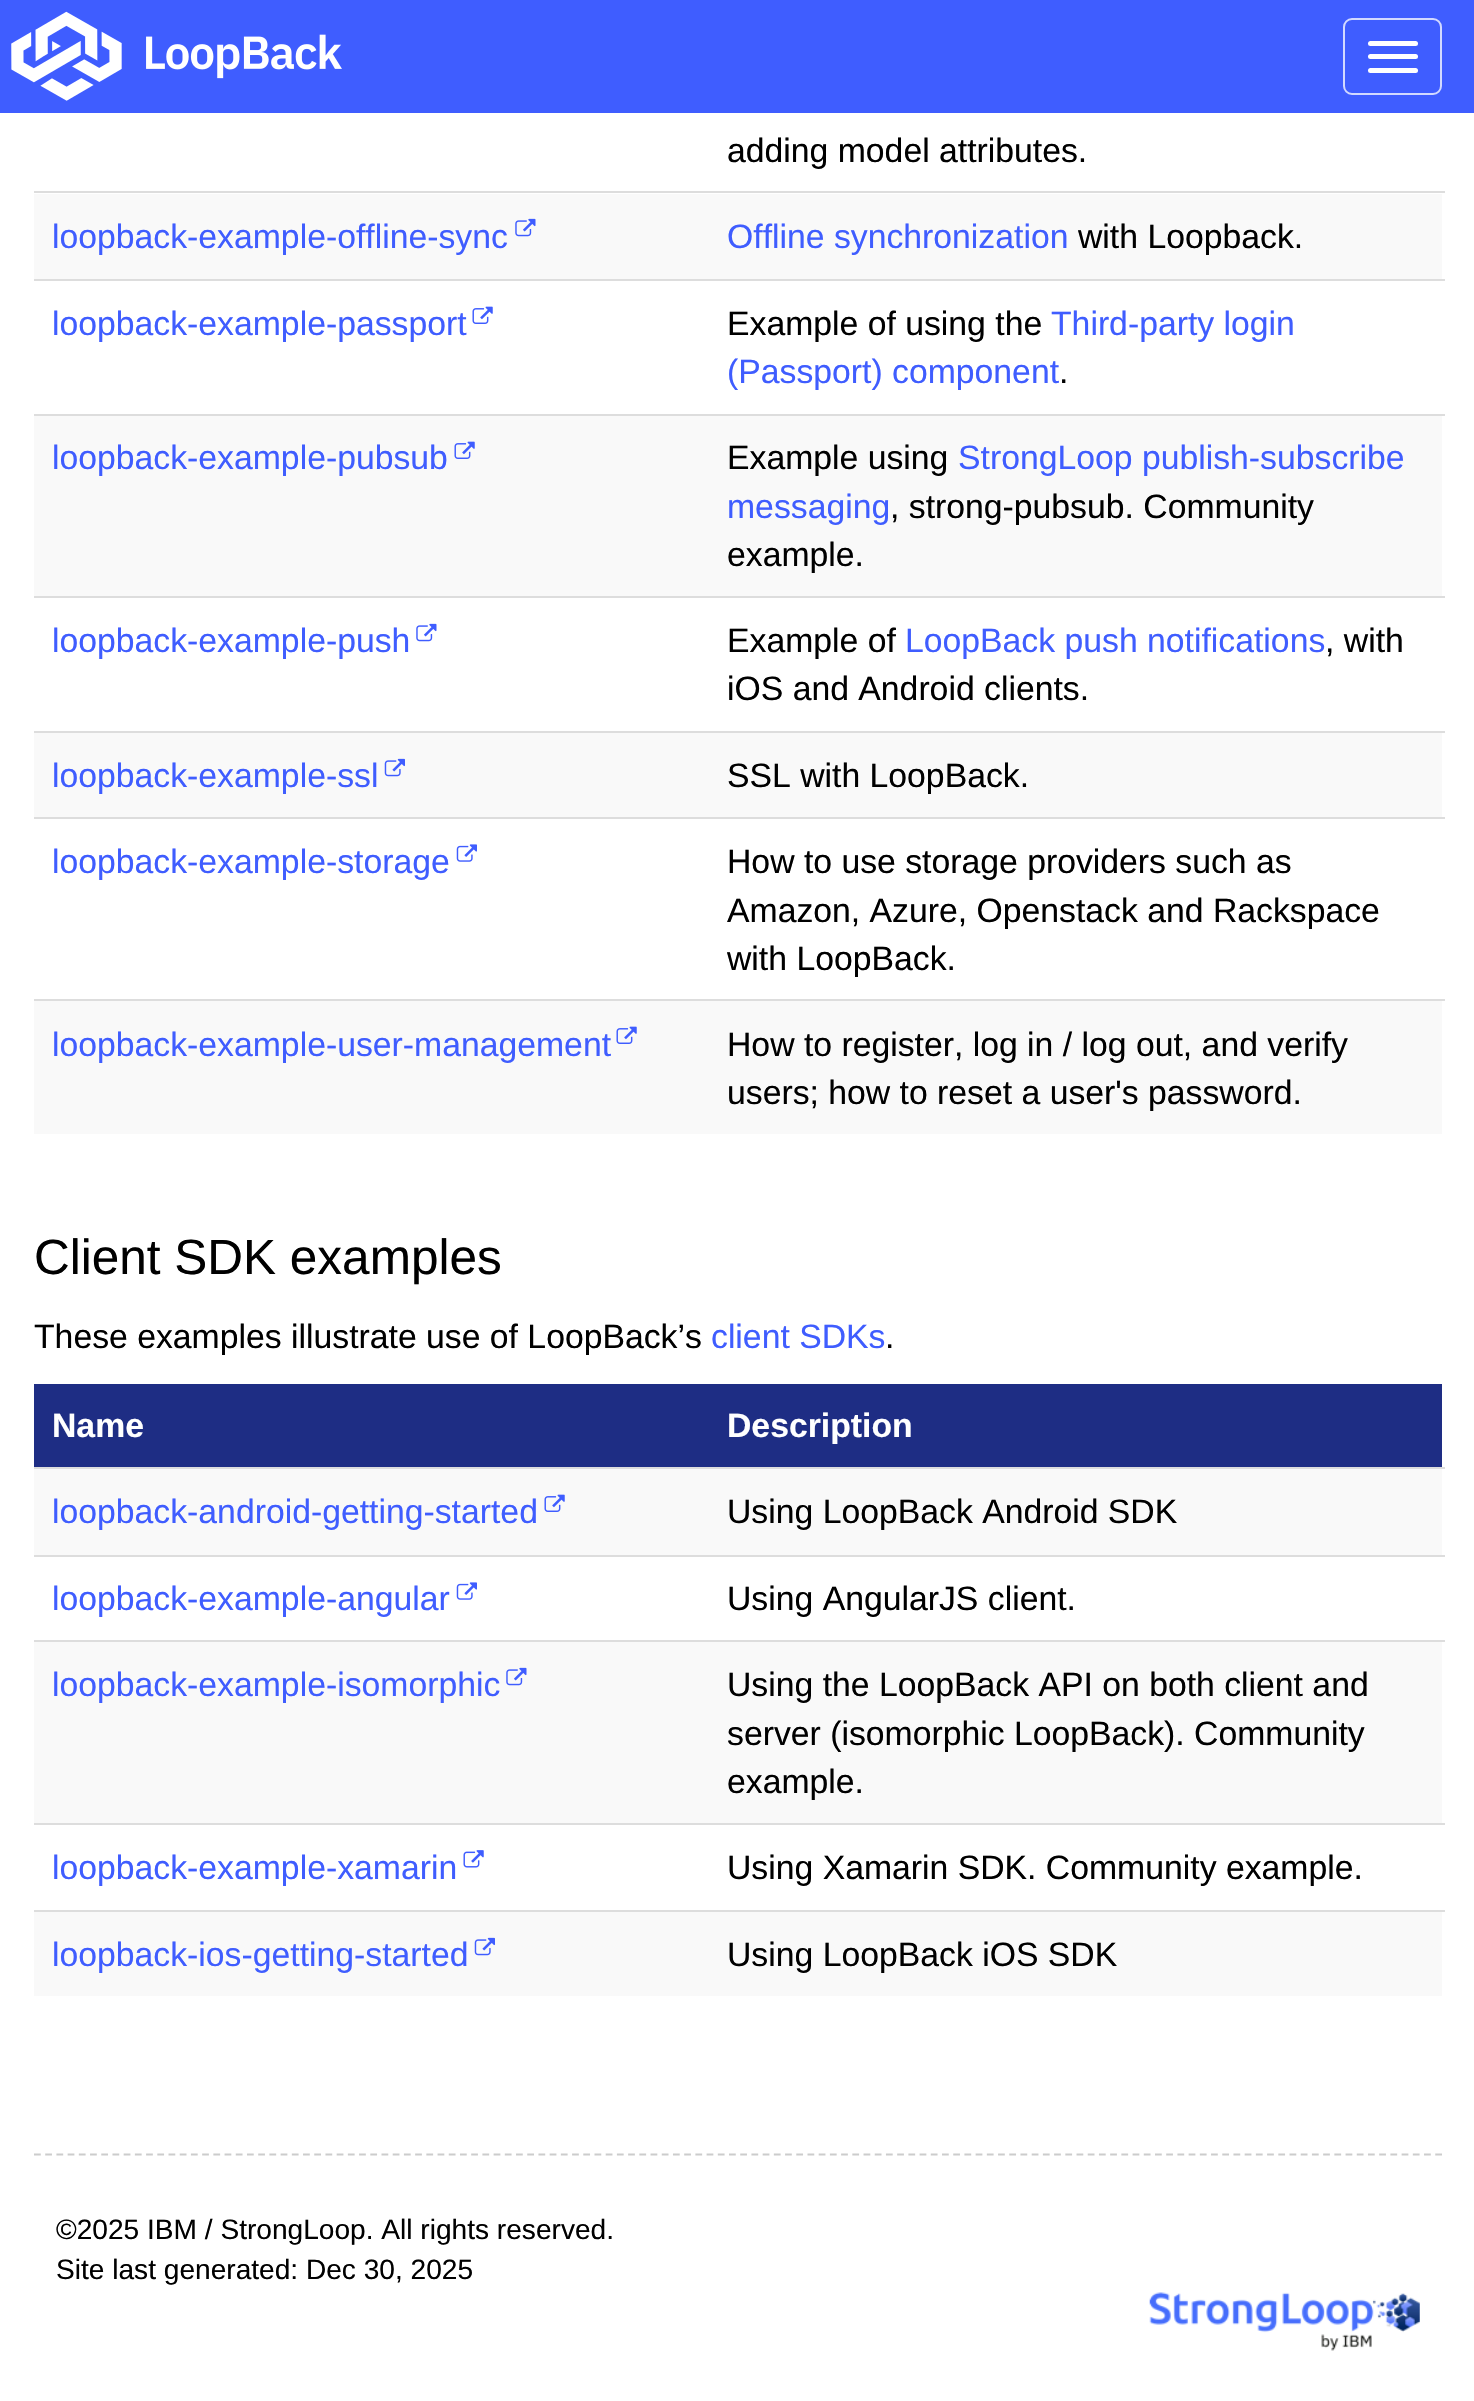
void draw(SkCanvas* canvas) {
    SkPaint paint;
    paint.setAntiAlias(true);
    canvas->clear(0xFFFFFFFF);
    paint.setColor(0xFF3F5DFF);
    canvas->drawRect(SkRect::MakeXYWH(0, 0, 1474, 113), paint);
    canvas->drawImageRect(SkImages::DeferredFromEncodedData(SkData::MakeFromFileName("img1.png")), SkRect::MakeXYWH(11, 11, 331, 90), SkSamplingOptions());
    paint.setStyle(SkPaint::kStroke_Style);
    paint.setStrokeWidth(2);
    paint.setColor(0xFFD2D9FF);
    canvas->drawRoundRect(SkRect::MakeXYWH(1344, 19, 97, 75), 8, 8, paint);
    paint.setStyle(SkPaint::kFill_Style);
    paint.setColor(0xFFFFFFFF);
    canvas->drawRoundRect(SkRect::MakeXYWH(1368, 41, 50, 5), 2.5f, 2.5f, paint);
    canvas->drawRoundRect(SkRect::MakeXYWH(1368, 54, 50, 5), 2.5f, 2.5f, paint);
    canvas->drawRoundRect(SkRect::MakeXYWH(1368, 68, 50, 5), 2.5f, 2.5f, paint);
    SkFont font1(fontMgr->matchFamilyStyle("Liberation Sans", SkFontStyle::Normal()), 33.75f);
    font1.setSubpixel(true);
    paint.setColor(0xFF000000);
    canvas->drawString("adding model attributes.", 727, 162, font1, paint);
    paint.setColor(0xFFF9F9F9);
    canvas->drawRect(SkRect::MakeXYWH(34, 194, 1408, 85), paint);
    paint.setColor(0xFF3F5DFF);
    canvas->drawString("loopback-example-offline-sync", 52, 248, font1, paint);
    canvas->drawImageRect(SkImages::DeferredFromEncodedData(SkData::MakeFromFileName("img2.png")), SkRect::MakeXYWH(515, 218, 21, 19), SkSamplingOptions());
    paint.setColor(0xFFDDDDDD);
    canvas->drawRect(SkRect::MakeXYWH(34, 191, 1411, 2), paint);
    paint.setColor(0xFF3F5DFF);
    canvas->drawString("Offline synchronization", 727, 248, font1, paint);
    paint.setColor(0xFF000000);
    canvas->drawString("with Loopback.", 1078, 248, font1, paint);
    paint.setColor(0xFF3F5DFF);
    canvas->drawString("loopback-example-passport", 52, 335, font1, paint);
    canvas->drawImageRect(SkImages::DeferredFromEncodedData(SkData::MakeFromFileName("img3.png")), SkRect::MakeXYWH(472, 306, 21, 18), SkSamplingOptions());
    paint.setColor(0xFFDDDDDD);
    canvas->drawRect(SkRect::MakeXYWH(34, 279, 1411, 2), paint);
    paint.setColor(0xFF000000);
    canvas->drawString("Example of using the", 727, 335, font1, paint);
    paint.setColor(0xFF3F5DFF);
    canvas->drawString("Third-party login", 1051, 335, font1, paint);
    canvas->drawString("(Passport) component", 727, 383, font1, paint);
    paint.setColor(0xFF000000);
    canvas->drawString(".", 1059, 383, font1, paint);
    paint.setColor(0xFFF9F9F9);
    canvas->drawRect(SkRect::MakeXYWH(34, 416, 1408, 180), paint);
    paint.setColor(0xFF3F5DFF);
    canvas->drawString("loopback-example-pubsub", 52, 469, font1, paint);
    canvas->drawImageRect(SkImages::DeferredFromEncodedData(SkData::MakeFromFileName("img4.png")), SkRect::MakeXYWH(454, 441, 21, 18), SkSamplingOptions());
    paint.setColor(0xFFDDDDDD);
    canvas->drawRect(SkRect::MakeXYWH(34, 414, 1411, 2), paint);
    paint.setColor(0xFF000000);
    canvas->drawString("Example using", 727, 469, font1, paint);
    paint.setColor(0xFF3F5DFF);
    canvas->drawString("StrongLoop publish-subscribe", 958, 469, font1, paint);
    canvas->drawString("messaging", 727, 518, font1, paint);
    paint.setColor(0xFF000000);
    canvas->drawString(", strong-pubsub. Community", 890, 518, font1, paint);
    canvas->drawString("example.", 727, 566, font1, paint);
    paint.setColor(0xFF3F5DFF);
    canvas->drawString("loopback-example-push", 52, 652, font1, paint);
    canvas->drawImageRect(SkImages::DeferredFromEncodedData(SkData::MakeFromFileName("img5.png")), SkRect::MakeXYWH(416, 623, 21, 19), SkSamplingOptions());
    paint.setColor(0xFFDDDDDD);
    canvas->drawRect(SkRect::MakeXYWH(34, 596, 1411, 2), paint);
    paint.setColor(0xFF000000);
    canvas->drawString("Example of", 727, 652, font1, paint);
    paint.setColor(0xFF3F5DFF);
    canvas->drawString("LoopBack push notifications", 905, 652, font1, paint);
    paint.setColor(0xFF000000);
    canvas->drawString(", with", 1325, 652, font1, paint);
    canvas->drawString("iOS and Android clients.", 727, 700, font1, paint);
    paint.setColor(0xFFF9F9F9);
    canvas->drawRect(SkRect::MakeXYWH(34, 733, 1408, 84), paint);
    paint.setColor(0xFF3F5DFF);
    canvas->drawString("loopback-example-ssl", 52, 787, font1, paint);
    canvas->drawImageRect(SkImages::DeferredFromEncodedData(SkData::MakeFromFileName("img6.png")), SkRect::MakeXYWH(384, 758, 21, 19), SkSamplingOptions());
    paint.setColor(0xFFDDDDDD);
    canvas->drawRect(SkRect::MakeXYWH(34, 731, 1411, 2), paint);
    paint.setColor(0xFF000000);
    canvas->drawString("SSL with LoopBack.", 727, 787, font1, paint);
    paint.setColor(0xFF3F5DFF);
    canvas->drawString("loopback-example-storage", 52, 873, font1, paint);
    canvas->drawImageRect(SkImages::DeferredFromEncodedData(SkData::MakeFromFileName("img7.png")), SkRect::MakeXYWH(456, 844, 21, 18), SkSamplingOptions());
    paint.setColor(0xFFDDDDDD);
    canvas->drawRect(SkRect::MakeXYWH(34, 817, 1411, 2), paint);
    paint.setColor(0xFF000000);
    canvas->drawString("How to use storage providers such as", 727, 873, font1, paint);
    canvas->drawString("Amazon, Azure, Openstack and Rackspace", 727, 922, font1, paint);
    canvas->drawString("with LoopBack.", 727, 970, font1, paint);
    paint.setColor(0xFFF9F9F9);
    canvas->drawRect(SkRect::MakeXYWH(34, 1001, 1408, 133), paint);
    paint.setColor(0xFF3F5DFF);
    canvas->drawString("loopback-example-user-management", 52, 1056, font1, paint);
    canvas->drawImageRect(SkImages::DeferredFromEncodedData(SkData::MakeFromFileName("img4.png")), SkRect::MakeXYWH(616, 1026, 21, 18), SkSamplingOptions());
    paint.setColor(0xFFDDDDDD);
    canvas->drawRect(SkRect::MakeXYWH(34, 999, 1411, 2), paint);
    paint.setColor(0xFF000000);
    canvas->drawString("How to register, log in / log out, and verify", 727, 1056, font1, paint);
    canvas->drawString("users; how to reset a user's password.", 727, 1104, font1, paint);
    SkFont font2(fontMgr->matchFamilyStyle("Liberation Sans", SkFontStyle::Normal()), 49.5f);
    font2.setSubpixel(true);
    canvas->drawString("Client SDK examples", 34, 1274, font2, paint);
    canvas->drawString("These examples illustrate use of LoopBack’s", 34, 1348, font1, paint);
    paint.setColor(0xFF3F5DFF);
    canvas->drawString("client SDKs", 711, 1348, font1, paint);
    paint.setColor(0xFF000000);
    canvas->drawString(".", 885, 1348, font1, paint);
    paint.setColor(0xFF1E2D84);
    canvas->drawRect(SkRect::MakeXYWH(34, 1384, 1408, 83), paint);
    SkFont font3(fontMgr->matchFamilyStyle("Liberation Sans", SkFontStyle::Bold()), 33.75f);
    font3.setSubpixel(true);
    paint.setColor(0xFFFFFFFF);
    canvas->drawString("Name", 52, 1437, font3, paint);
    canvas->drawString("Description", 727, 1437, font3, paint);
    paint.setColor(0xFFF9F9F9);
    canvas->drawRect(SkRect::MakeXYWH(34, 1469, 1408, 86), paint);
    paint.setColor(0xFF3F5DFF);
    canvas->drawString("loopback-android-getting-started", 52, 1523, font1, paint);
    canvas->drawImageRect(SkImages::DeferredFromEncodedData(SkData::MakeFromFileName("img4.png")), SkRect::MakeXYWH(544, 1494, 21, 18), SkSamplingOptions());
    paint.setColor(0xFFDDDDDD);
    canvas->drawRect(SkRect::MakeXYWH(34, 1467, 1411, 2), paint);
    paint.setColor(0xFF000000);
    canvas->drawString("Using LoopBack Android SDK", 727, 1523, font1, paint);
    paint.setColor(0xFF3F5DFF);
    canvas->drawString("loopback-example-angular", 52, 1610, font1, paint);
    canvas->drawImageRect(SkImages::DeferredFromEncodedData(SkData::MakeFromFileName("img7.png")), SkRect::MakeXYWH(456, 1582, 21, 18), SkSamplingOptions());
    paint.setColor(0xFFDDDDDD);
    canvas->drawRect(SkRect::MakeXYWH(34, 1555, 1411, 2), paint);
    paint.setColor(0xFF000000);
    canvas->drawString("Using AngularJS client.", 727, 1610, font1, paint);
    paint.setColor(0xFFF9F9F9);
    canvas->drawRect(SkRect::MakeXYWH(34, 1642, 1408, 181), paint);
    paint.setColor(0xFF3F5DFF);
    canvas->drawString("loopback-example-isomorphic", 52, 1696, font1, paint);
    canvas->drawImageRect(SkImages::DeferredFromEncodedData(SkData::MakeFromFileName("img2.png")), SkRect::MakeXYWH(506, 1667, 21, 19), SkSamplingOptions());
    paint.setColor(0xFFDDDDDD);
    canvas->drawRect(SkRect::MakeXYWH(34, 1640, 1411, 2), paint);
    paint.setColor(0xFF000000);
    canvas->drawString("Using the LoopBack API on both client and", 727, 1696, font1, paint);
    canvas->drawString("server (isomorphic LoopBack). Community", 727, 1745, font1, paint);
    canvas->drawString("example.", 727, 1793, font1, paint);
    paint.setColor(0xFF3F5DFF);
    canvas->drawString("loopback-example-xamarin", 52, 1879, font1, paint);
    canvas->drawImageRect(SkImages::DeferredFromEncodedData(SkData::MakeFromFileName("img8.png")), SkRect::MakeXYWH(463, 1850, 21, 18), SkSamplingOptions());
    paint.setColor(0xFFDDDDDD);
    canvas->drawRect(SkRect::MakeXYWH(34, 1823, 1411, 2), paint);
    paint.setColor(0xFF000000);
    canvas->drawString("Using Xamarin SDK. Community example.", 727, 1879, font1, paint);
    paint.setColor(0xFFF9F9F9);
    canvas->drawRect(SkRect::MakeXYWH(34, 1912, 1408, 84), paint);
    paint.setColor(0xFF3F5DFF);
    canvas->drawString("loopback-ios-getting-started", 52, 1966, font1, paint);
    canvas->drawImageRect(SkImages::DeferredFromEncodedData(SkData::MakeFromFileName("img6.png")), SkRect::MakeXYWH(474, 1937, 21, 19), SkSamplingOptions());
    paint.setColor(0xFFDDDDDD);
    canvas->drawRect(SkRect::MakeXYWH(34, 1910, 1411, 2), paint);
    paint.setColor(0xFF000000);
    canvas->drawString("Using LoopBack iOS SDK", 727, 1966, font1, paint);
    paint.setStyle(SkPaint::kStroke_Style);
    paint.setStrokeWidth(2.2f);
    paint.setColor(0xFFCCCCCC);
    paint.setPathEffect(SkDashPathEffect::Make({{6.75f, 4.46f}}, 0));
    canvas->drawPath(SkPathBuilder().moveTo(34, 2154.5f).lineTo(1442, 2154.5f).detach(), paint);
    paint.setPathEffect(nullptr);
    SkFont font4(fontMgr->matchFamilyStyle("Liberation Sans", SkFontStyle::Normal()), 28.1f);
    font4.setSubpixel(true);
    paint.setStyle(SkPaint::kFill_Style);
    paint.setColor(0xFF000000);
    canvas->drawString("©2025 IBM / StrongLoop. All rights reserved.", 56, 2239, font4, paint);
    canvas->drawString("Site last generated: Dec 30, 2025", 56, 2279, font4, paint);
    canvas->drawImageRect(SkImages::DeferredFromEncodedData(SkData::MakeFromFileName("img9.png")), SkRect::MakeXYWH(1149, 2292, 271, 59), SkSamplingOptions());
}
